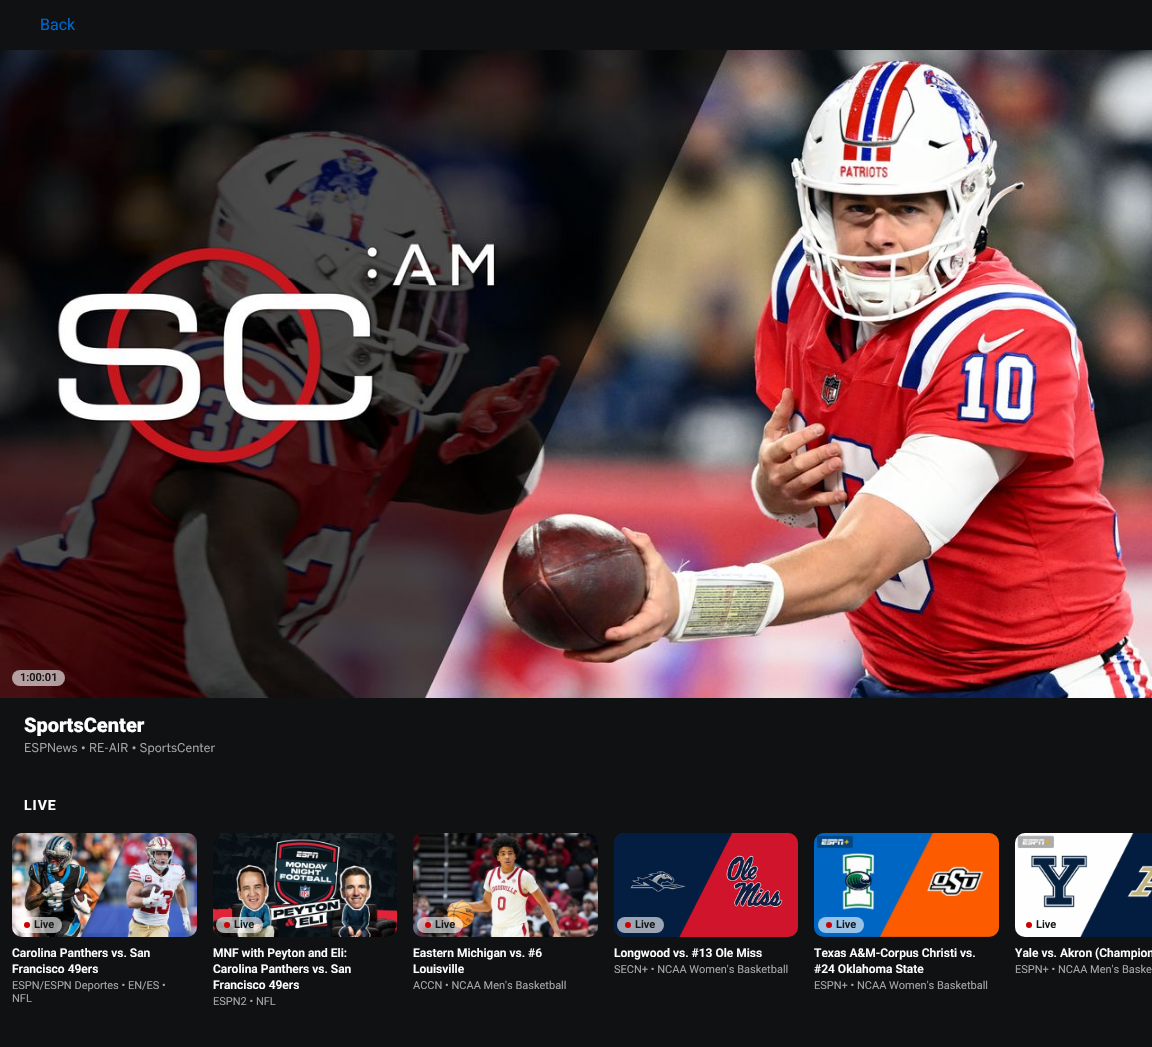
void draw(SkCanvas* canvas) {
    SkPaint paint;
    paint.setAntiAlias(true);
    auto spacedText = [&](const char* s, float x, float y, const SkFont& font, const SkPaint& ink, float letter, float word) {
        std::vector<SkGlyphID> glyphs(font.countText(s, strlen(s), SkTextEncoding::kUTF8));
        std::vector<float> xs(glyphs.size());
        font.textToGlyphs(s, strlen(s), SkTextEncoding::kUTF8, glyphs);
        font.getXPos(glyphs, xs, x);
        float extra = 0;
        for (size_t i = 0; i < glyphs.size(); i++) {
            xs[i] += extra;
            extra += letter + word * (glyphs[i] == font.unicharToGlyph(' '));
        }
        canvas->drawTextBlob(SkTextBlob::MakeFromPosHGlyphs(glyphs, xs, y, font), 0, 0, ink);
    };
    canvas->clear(0xFF101113);
    SkFont font1(fontMgr->matchFamilyStyle("Roboto", SkFontStyle::Normal()), 16);
    font1.setSubpixel(true);
    paint.setColor(0xFF0066CC);
    canvas->drawString("Back", 40, 30, font1, paint);
    canvas->drawImageRect(SkImages::DeferredFromEncodedData(SkData::MakeFromFileName("img1.png")), SkRect::MakeXYWH(0, 50, 1152, 648), SkSamplingOptions());
    paint.setColor(0x99FFFFFF);
    canvas->drawRoundRect(SkRect::MakeXYWH(12, 670, 53, 16), 8, 8, paint);
    SkFont font2(fontMgr->matchFamilyStyle("Roboto", SkFontStyle(600, SkFontStyle::kNormal_Width, SkFontStyle::kUpright_Slant)), 11);
    font2.setSubpixel(true);
    paint.setColor(0xFF151617);
    canvas->drawString("1:00:01", 20, 681, font2, paint);
    SkFont font3(fontMgr->matchFamilyStyle("Roboto", SkFontStyle(900, SkFontStyle::kNormal_Width, SkFontStyle::kUpright_Slant)), 20);
    font3.setSubpixel(true);
    paint.setColor(0xFFFFFFFF);
    canvas->drawString("SportsCenter", 24, 732, font3, paint);
    SkFont font4(fontMgr->matchFamilyStyle("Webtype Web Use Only", SkFontStyle::Normal()), 12);
    font4.setSubpixel(true);
    paint.setColor(0xFFA5A6A7);
    canvas->drawString("ESPNews • RE-AIR • SportsCenter", 24, 752, font4, paint);
    SkFont font5(fontMgr->matchFamilyStyle("Roboto", SkFontStyle::Bold()), 14);
    font5.setSubpixel(true);
    paint.setColor(0xFFFFFFFF);
    spacedText("LIVE", 24, 810, font5, paint, 1, 0);
    paint.setColor(0xFF2B2C2D);
    canvas->drawRoundRect(SkRect::MakeXYWH(12, 833, 185, 104), 10, 10, paint);
    canvas->drawImageRect(SkImages::DeferredFromEncodedData(SkData::MakeFromFileName("img2.png")), SkRect::MakeXYWH(12, 833, 185, 104), SkSamplingOptions());
    paint.setColor(0x99FFFFFF);
    canvas->drawRoundRect(SkRect::MakeXYWH(16, 917, 46, 16), 8, 8, paint);
    paint.setColor(0xFFCC0000);
    canvas->drawCircle(27, 925, 3, paint);
    paint.setColor(0xFF151617);
    canvas->drawString("Live", 34, 928, font2, paint);
    SkFont font6(fontMgr->matchFamilyStyle("Roboto", SkFontStyle(600, SkFontStyle::kNormal_Width, SkFontStyle::kUpright_Slant)), 12);
    font6.setSubpixel(true);
    paint.setColor(0xFFFFFFFF);
    canvas->drawString("Carolina Panthers vs. San", 12, 957, font6, paint);
    canvas->drawString("Francisco 49ers", 12, 973, font6, paint);
    SkFont font7(fontMgr->matchFamilyStyle("Roboto", SkFontStyle::Normal()), 11);
    font7.setSubpixel(true);
    paint.setColor(0xFFA5A6A7);
    canvas->drawString("ESPN/ESPN Deportes • EN/ES •", 12, 989, font7, paint);
    canvas->drawString("NFL", 12, 1002, font7, paint);
    paint.setColor(0xFF2B2C2D);
    canvas->drawRoundRect(SkRect::MakeXYWH(213, 833, 184, 104), 10, 10, paint);
    canvas->drawImageRect(SkImages::DeferredFromEncodedData(SkData::MakeFromFileName("img3.png")), SkRect::MakeXYWH(213, 833, 184, 104), SkSamplingOptions());
    paint.setColor(0x99FFFFFF);
    canvas->drawRoundRect(SkRect::MakeXYWH(216, 917, 47, 16), 8, 8, paint);
    paint.setColor(0xFFCC0000);
    canvas->drawCircle(227, 925, 3, paint);
    paint.setColor(0xFF151617);
    canvas->drawString("Live", 234, 928, font2, paint);
    paint.setColor(0xFFFFFFFF);
    canvas->drawString("MNF with Peyton and Eli:", 213, 957, font6, paint);
    canvas->drawString("Carolina Panthers vs. San", 213, 973, font6, paint);
    canvas->drawString("Francisco 49ers", 213, 989, font6, paint);
    paint.setColor(0xFFA5A6A7);
    canvas->drawString("ESPN2 • NFL", 213, 1005, font7, paint);
    paint.setColor(0xFF2B2C2D);
    canvas->drawRoundRect(SkRect::MakeXYWH(413, 833, 185, 104), 10, 10, paint);
    canvas->drawImageRect(SkImages::DeferredFromEncodedData(SkData::MakeFromFileName("img4.png")), SkRect::MakeXYWH(413, 833, 185, 104), SkSamplingOptions());
    paint.setColor(0x99FFFFFF);
    canvas->drawRoundRect(SkRect::MakeXYWH(417, 917, 46, 16), 8, 8, paint);
    paint.setColor(0xFFCC0000);
    canvas->drawCircle(428, 925, 3, paint);
    paint.setColor(0xFF151617);
    canvas->drawString("Live", 435, 928, font2, paint);
    paint.setColor(0xFFFFFFFF);
    canvas->drawString("Eastern Michigan vs. #6", 413, 957, font6, paint);
    canvas->drawString("Louisville", 413, 973, font6, paint);
    paint.setColor(0xFFA5A6A7);
    canvas->drawString("ACCN • NCAA Men's Basketball", 413, 989, font7, paint);
    paint.setColor(0xFF2B2C2D);
    canvas->drawRoundRect(SkRect::MakeXYWH(614, 833, 184, 104), 10, 10, paint);
    canvas->drawImageRect(SkImages::DeferredFromEncodedData(SkData::MakeFromFileName("img5.png")), SkRect::MakeXYWH(614, 833, 184, 104), SkSamplingOptions());
    paint.setColor(0xFF9BA5B3);
    canvas->drawRoundRect(SkRect::MakeXYWH(617, 917, 47, 16), 8, 8, paint);
    paint.setColor(0xFFCC0000);
    canvas->drawCircle(628, 925, 3, paint);
    paint.setColor(0xFF151617);
    canvas->drawString("Live", 635, 928, font2, paint);
    paint.setColor(0xFFFFFFFF);
    canvas->drawString("Longwood vs. #13 Ole Miss", 614, 957, font6, paint);
    paint.setColor(0xFFA5A6A7);
    canvas->drawString("SECN+ • NCAA Women's Basketball", 614, 973, font7, paint);
    paint.setColor(0xFF2B2C2D);
    canvas->drawRoundRect(SkRect::MakeXYWH(814, 833, 185, 104), 10, 10, paint);
    canvas->drawImageRect(SkImages::DeferredFromEncodedData(SkData::MakeFromFileName("img6.png")), SkRect::MakeXYWH(814, 833, 185, 104), SkSamplingOptions());
    paint.setColor(0xFF99C2E7);
    canvas->drawRoundRect(SkRect::MakeXYWH(818, 917, 46, 16), 8, 8, paint);
    paint.setColor(0xFFCC0000);
    canvas->drawCircle(829, 925, 3, paint);
    paint.setColor(0xFF151617);
    canvas->drawString("Live", 836, 928, font2, paint);
    paint.setColor(0xFFFFFFFF);
    canvas->drawString("Texas A&M-Corpus Christi vs.", 814, 957, font6, paint);
    canvas->drawString("#24 Oklahoma State", 814, 973, font6, paint);
    paint.setColor(0xFFA5A6A7);
    canvas->drawString("ESPN+ • NCAA Women's Basketball", 814, 989, font7, paint);
    paint.setColor(0xFF2B2C2D);
    canvas->drawPath(SkPathBuilder().moveTo(1025, 833).lineTo(1152, 833).lineTo(1152, 937).lineTo(1025, 937).cubicTo(1019.5f, 937, 1015, 932.5f, 1015, 927).lineTo(1015, 843).cubicTo(1015, 837.5f, 1019.5f, 833, 1025, 833).close().detach(), paint);
    canvas->drawImageRect(SkImages::DeferredFromEncodedData(SkData::MakeFromFileName("img7.png")), SkRect::MakeXYWH(1015, 833, 137, 104), SkSamplingOptions());
    paint.setColor(0xFFCC0000);
    canvas->drawCircle(1029, 925, 3, paint);
    paint.setColor(0xFF151617);
    canvas->drawString("Live", 1036, 928, font2, paint);
    paint.setColor(0xFFFFFFFF);
    canvas->drawString("Yale vs. Akron (Champion", 1015, 957, font6, paint);
    paint.setColor(0xFFA5A6A7);
    canvas->drawString("ESPN+ • NCAA Men's Baske", 1015, 973, font7, paint);
}
